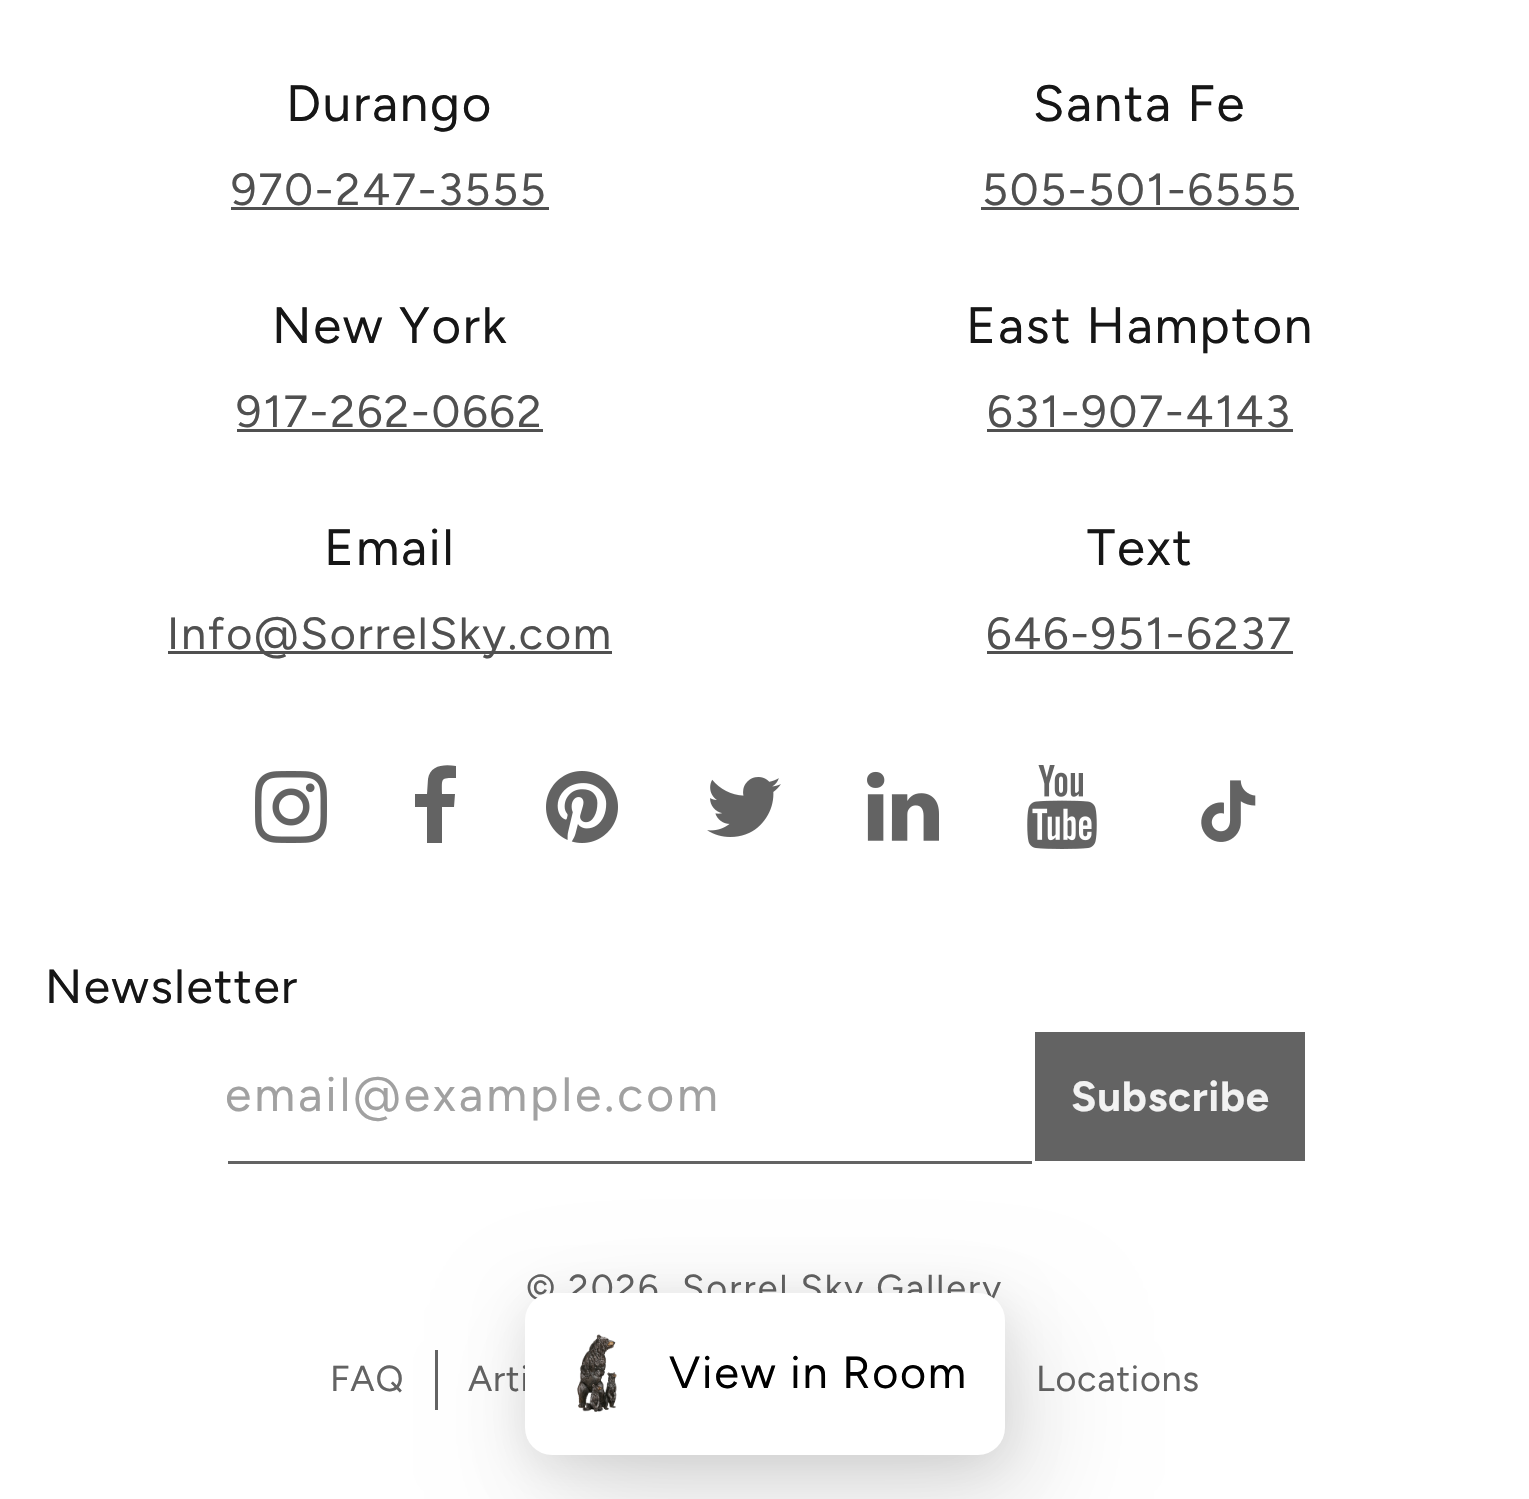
void draw(SkCanvas* canvas) {
    SkPaint paint;
    paint.setAntiAlias(true);
    auto spacedText = [&](const char* s, float x, float y, const SkFont& font, const SkPaint& ink, float letter, float word) {
        std::vector<SkGlyphID> glyphs(font.countText(s, strlen(s), SkTextEncoding::kUTF8));
        std::vector<float> xs(glyphs.size());
        font.textToGlyphs(s, strlen(s), SkTextEncoding::kUTF8, glyphs);
        font.getXPos(glyphs, xs, x);
        float extra = 0;
        for (size_t i = 0; i < glyphs.size(); i++) {
            xs[i] += extra;
            extra += letter + word * (glyphs[i] == font.unicharToGlyph(' '));
        }
        canvas->drawTextBlob(SkTextBlob::MakeFromPosHGlyphs(glyphs, xs, y, font), 0, 0, ink);
    };
    canvas->clear(0xFFFFFFFF);
    SkFont font1(fontMgr->matchFamilyStyle("Figtree", SkFontStyle::Normal()), 51);
    font1.setSubpixel(true);
    paint.setColor(0xFF161616);
    spacedText("Durango", 286, 121, font1, paint, 1.75f, 0);
    SkFont font2(fontMgr->matchFamilyStyle("Figtree", SkFontStyle::Normal()), 45);
    font2.setSubpixel(true);
    paint.setColor(0xFF505050);
    spacedText("970-247-3555", 231, 205, font2, paint, 1.75f, 0);
    canvas->drawRect(SkRect::MakeXYWH(231, 207, 318, 3), paint);
    paint.setColor(0xFF161616);
    spacedText("Santa Fe", 1033, 121, font1, paint, 1.75f, 0);
    paint.setColor(0xFF505050);
    spacedText("505-501-6555", 982, 205, font2, paint, 1.75f, 0);
    canvas->drawRect(SkRect::MakeXYWH(981, 207, 318, 3), paint);
    paint.setColor(0xFF161616);
    spacedText("New York", 272, 343, font1, paint, 1.75f, 0);
    paint.setColor(0xFF505050);
    spacedText("917-262-0662", 236, 427, font2, paint, 1.75f, 0);
    canvas->drawRect(SkRect::MakeXYWH(237, 429, 306, 3), paint);
    paint.setColor(0xFF161616);
    spacedText("East Hampton", 966, 343, font1, paint, 1.75f, 0);
    paint.setColor(0xFF505050);
    spacedText("631-907-4143", 987, 427, font2, paint, 1.75f, 0);
    canvas->drawRect(SkRect::MakeXYWH(987, 429, 306, 3), paint);
    paint.setColor(0xFF161616);
    spacedText("Email", 324, 565, font1, paint, 1.75f, 0);
    paint.setColor(0xFF505050);
    canvas->drawRect(SkRect::MakeXYWH(168, 651, 444, 3), paint);
    spacedText("Info@SorrelSky.com", 167, 649, font2, paint, 1.75f, 0);
    paint.setColor(0xFF161616);
    spacedText("Text", 1087, 565, font1, paint, 1.75f, 0);
    paint.setColor(0xFF505050);
    spacedText("646-951-6237", 986, 649, font2, paint, 1.75f, 0);
    canvas->drawRect(SkRect::MakeXYWH(987, 651, 306, 3), paint);
    canvas->drawImageRect(SkImages::DeferredFromEncodedData(SkData::MakeFromFileName("img1.png")), SkRect::MakeXYWH(255, 771, 72, 72), SkSamplingOptions());
    paint.setColor(0xFF636363);
    canvas->drawPath(SkPathBuilder().moveTo(456, 766).lineTo(456, 778).cubicTo(440, 778, 442, 778, 442, 794).lineTo(455, 794).lineTo(454, 807).lineTo(442, 807).lineTo(442, 843).lineTo(427, 843).lineTo(427, 807).lineTo(415, 807).lineTo(415, 794).lineTo(427, 794).lineTo(428, 779).cubicTo(430, 765, 444, 764, 456, 766).close().detach(), paint);
    canvas->drawImageRect(SkImages::DeferredFromEncodedData(SkData::MakeFromFileName("img2.png")), SkRect::MakeXYWH(546, 771, 72, 72), SkSamplingOptions());
    canvas->drawImageRect(SkImages::DeferredFromEncodedData(SkData::MakeFromFileName("img3.png")), SkRect::MakeXYWH(707, 777, 74, 60), SkSamplingOptions());
    canvas->drawImageRect(SkImages::DeferredFromEncodedData(SkData::MakeFromFileName("img4.png")), SkRect::MakeXYWH(867, 771, 72, 70), SkSamplingOptions());
    canvas->drawImageRect(SkImages::DeferredFromEncodedData(SkData::MakeFromFileName("img5.png")), SkRect::MakeXYWH(1027, 765, 70, 84), SkSamplingOptions());
    canvas->drawImageRect(SkImages::DeferredFromEncodedData(SkData::MakeFromFileName("img6.png")), SkRect::MakeXYWH(1201, 780, 55, 62), SkSamplingOptions());
    SkFont font3(fontMgr->matchFamilyStyle("Figtree", SkFontStyle::Normal()), 48);
    font3.setSubpixel(true);
    paint.setColor(0xFF161616);
    spacedText("Newsletter", 45, 1003, font3, paint, 1.5f, 0);
    paint.setColor(0xFFA1A1A1);
    spacedText("email@example.com", 225, 1111, font3, paint, 3, 0);
    paint.setColor(0xFF636363);
    canvas->drawRect(SkRect::MakeXYWH(1035, 1032, 270, 129), paint);
    SkFont font4(fontMgr->matchFamilyStyle("Figtree", SkFontStyle::Bold()), 42);
    font4.setSubpixel(true);
    paint.setColor(0xFFF2F2F2);
    spacedText("Subscribe", 1071, 1111, font4, paint, 0.75f, 0);
    paint.setColor(0xFF636363);
    canvas->drawRect(SkRect::MakeXYWH(228, 1161, 804, 3), paint);
    SkFont font5(fontMgr->matchFamilyStyle("Figtree", SkFontStyle::Normal()), 36);
    font5.setSubpixel(true);
    spacedText("© 2026", 526, 1300, font5, paint, 2.1f, 0);
    spacedText("Sorrel Sky Gallery", 682, 1300, font5, paint, 2.1f, 0);
    spacedText("FAQ", 330, 1391, font5, paint, 0.75f, 0);
    canvas->drawRect(SkRect::MakeXYWH(435, 1350, 3, 60), paint);
    spacedText("Arti", 468, 1391, font5, paint, 0.75f, 0);
    spacedText("Locations", 1036, 1391, font5, paint, 0.75f, 0);
    paint.setColor(0x1A000000);
    paint.setMaskFilter(SkMaskFilter::MakeBlur(kNormal_SkBlurStyle, 24));
    canvas->drawRoundRect(SkRect::MakeXYWH(525, 1302, 480, 162), 27, 27, paint);
    paint.setMaskFilter(nullptr);
    paint.setColor(0x1F000000);
    paint.setMaskFilter(SkMaskFilter::MakeBlur(kNormal_SkBlurStyle, 57));
    canvas->drawRoundRect(SkRect::MakeXYWH(549, 1335, 480, 162), 27, 27, paint);
    paint.setMaskFilter(nullptr);
    paint.setColor(0xFFFFFFFF);
    canvas->drawRoundRect(SkRect::MakeXYWH(525, 1293, 480, 162), 27, 27, paint);
    canvas->drawImageRect(SkImages::DeferredFromEncodedData(SkData::MakeFromFileName("img7.png")), SkRect::MakeXYWH(577, 1334, 40, 78), SkSamplingOptions());
    paint.setColor(0xFF000000);
    spacedText("View in Room", 669, 1388, font2, paint, 1.75f, 0);
}
